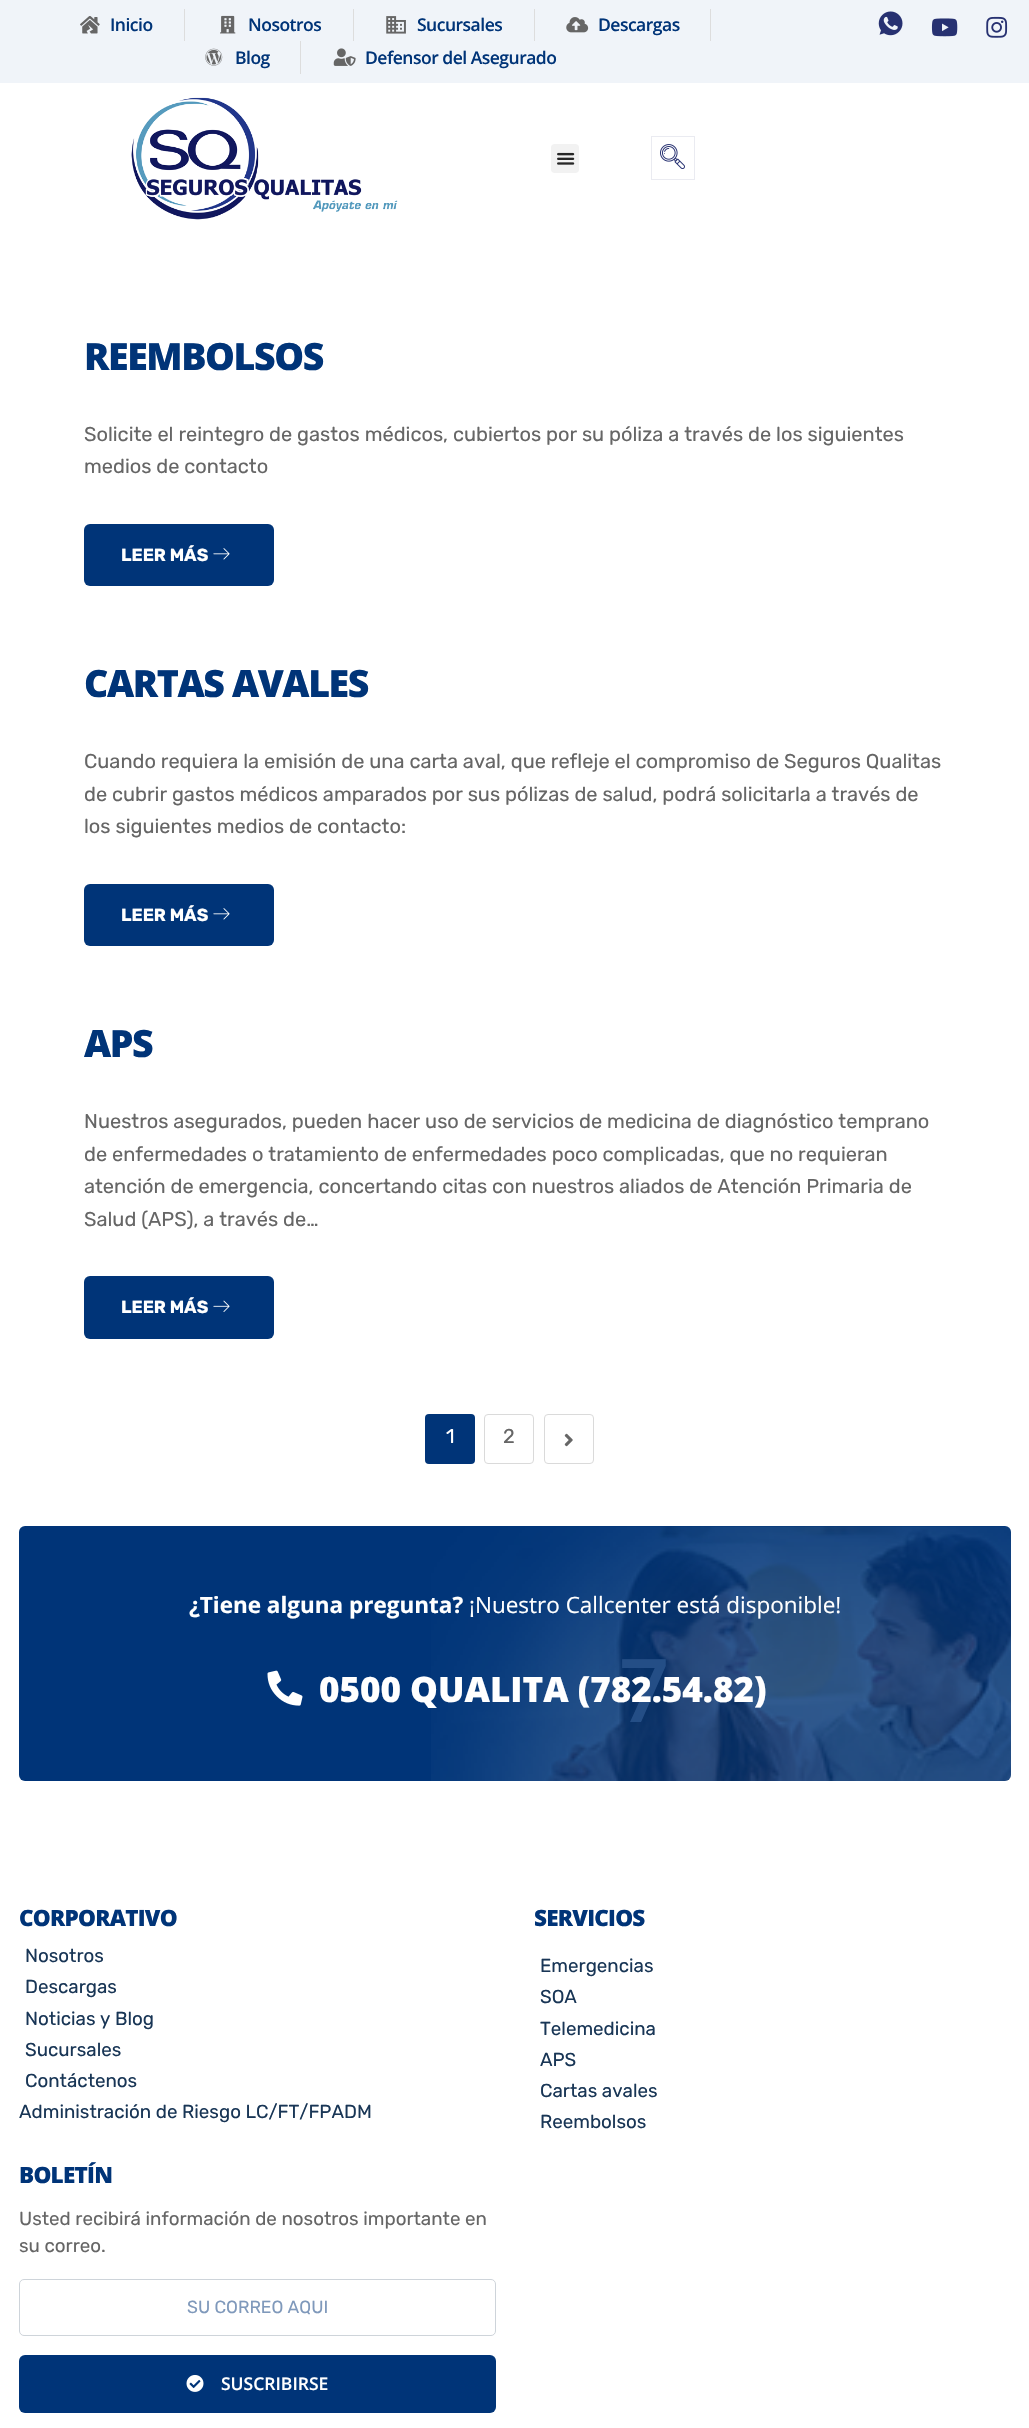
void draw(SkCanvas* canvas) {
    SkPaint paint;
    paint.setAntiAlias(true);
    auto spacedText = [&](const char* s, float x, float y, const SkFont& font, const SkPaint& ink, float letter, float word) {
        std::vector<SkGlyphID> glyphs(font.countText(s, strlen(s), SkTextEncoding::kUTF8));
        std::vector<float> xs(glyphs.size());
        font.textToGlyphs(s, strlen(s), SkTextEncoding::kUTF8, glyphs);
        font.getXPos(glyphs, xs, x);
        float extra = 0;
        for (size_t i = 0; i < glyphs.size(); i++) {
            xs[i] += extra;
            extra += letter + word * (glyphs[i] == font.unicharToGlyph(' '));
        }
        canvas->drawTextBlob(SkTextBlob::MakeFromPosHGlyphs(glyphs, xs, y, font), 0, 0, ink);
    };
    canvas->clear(0xFFFFFFFF);
    paint.setColor(0xFFF0F4F9);
    canvas->drawRect(SkRect::MakeXYWH(0, 0, 1029, 83), paint);
    canvas->drawImageRect(SkImages::DeferredFromEncodedData(SkData::MakeFromFileName("img1.png")), SkRect::MakeXYWH(80, 16, 20, 18), SkSamplingOptions());
    SkFont font1(fontMgr->matchFamilyStyle("Open Sans", SkFontStyle(600, SkFontStyle::kNormal_Width, SkFontStyle::kUpright_Slant)), 17.5f);
    font1.setSubpixel(true);
    paint.setColor(0xFF003478);
    spacedText("Inicio", 110, 31, font1, paint, -0.5f, 0);
    paint.setColor(0xFFDDDDDD);
    canvas->drawRect(SkRect::MakeXYWH(184, 9, 1, 32), paint);
    canvas->drawImageRect(SkImages::DeferredFromEncodedData(SkData::MakeFromFileName("img2.png")), SkRect::MakeXYWH(220, 15, 16, 19), SkSamplingOptions());
    paint.setColor(0xFF003478);
    spacedText("Nosotros", 248, 31, font1, paint, -0.5f, 0);
    paint.setColor(0xFFDDDDDD);
    canvas->drawRect(SkRect::MakeXYWH(353, 9, 1, 32), paint);
    canvas->drawImageRect(SkImages::DeferredFromEncodedData(SkData::MakeFromFileName("img3.png")), SkRect::MakeXYWH(386, 16, 20, 18), SkSamplingOptions());
    paint.setColor(0xFF003478);
    spacedText("Sucursales", 417, 31, font1, paint, -0.5f, 0);
    paint.setColor(0xFFDDDDDD);
    canvas->drawRect(SkRect::MakeXYWH(534, 9, 1, 32), paint);
    canvas->drawImageRect(SkImages::DeferredFromEncodedData(SkData::MakeFromFileName("img4.png")), SkRect::MakeXYWH(566, 17, 23, 16), SkSamplingOptions());
    paint.setColor(0xFF003478);
    spacedText("Descargas", 598, 31, font1, paint, -0.5f, 0);
    paint.setColor(0xFFDDDDDD);
    canvas->drawRect(SkRect::MakeXYWH(710, 9, 1, 32), paint);
    canvas->drawImageRect(SkImages::DeferredFromEncodedData(SkData::MakeFromFileName("img5.png")), SkRect::MakeXYWH(205, 48, 18, 18), SkSamplingOptions());
    paint.setColor(0xFF003478);
    spacedText("Blog", 235, 64, font1, paint, -0.5f, 0);
    paint.setColor(0xFFDDDDDD);
    canvas->drawRect(SkRect::MakeXYWH(300, 41, 1, 33), paint);
    canvas->drawImageRect(SkImages::DeferredFromEncodedData(SkData::MakeFromFileName("img6.png")), SkRect::MakeXYWH(333, 48, 23, 18), SkSamplingOptions());
    paint.setColor(0xFF003478);
    spacedText("Defensor del Asegurado", 365, 64, font1, paint, -0.5f, 0);
    canvas->drawImageRect(SkImages::DeferredFromEncodedData(SkData::MakeFromFileName("img7.png")), SkRect::MakeXYWH(878, 11, 25, 25), SkSamplingOptions());
    canvas->drawImageRect(SkImages::DeferredFromEncodedData(SkData::MakeFromFileName("img8.png")), SkRect::MakeXYWH(931, 18, 27, 19), SkSamplingOptions());
    canvas->drawImageRect(SkImages::DeferredFromEncodedData(SkData::MakeFromFileName("img9.png")), SkRect::MakeXYWH(986, 16, 22, 22), SkSamplingOptions());
    canvas->drawImageRect(SkImages::DeferredFromEncodedData(SkData::MakeFromFileName("img10.png")), SkRect::MakeXYWH(131, 97, 267, 123), SkSamplingOptions());
    paint.setColor(0xFFF2F2F2);
    canvas->drawRoundRect(SkRect::MakeXYWH(551, 144, 28, 29), 4, 4, paint);
    canvas->drawImageRect(SkImages::DeferredFromEncodedData(SkData::MakeFromFileName("img11.png")), SkRect::MakeXYWH(557, 152, 18, 13), SkSamplingOptions());
    paint.setStyle(SkPaint::kStroke_Style);
    paint.setStrokeWidth(1);
    paint.setColor(0xFFEAEBF1);
    canvas->drawRect(SkRect::MakeXYWH(651.5f, 136.5f, 43, 43), paint);
    canvas->drawImageRect(SkImages::DeferredFromEncodedData(SkData::MakeFromFileName("img12.png")), SkRect::MakeXYWH(660, 144, 25, 25), SkSamplingOptions());
    SkFont font2(fontMgr->matchFamilyStyle("Open Sans", SkFontStyle(800, SkFontStyle::kNormal_Width, SkFontStyle::kUpright_Slant)), 37.5f);
    font2.setSubpixel(true);
    paint.setStyle(SkPaint::kFill_Style);
    paint.setColor(0xFF003478);
    spacedText("REEMBOLSOS", 84, 370, font2, paint, -1.4f, 0);
    SkFont font3(fontMgr->matchFamilyStyle("Rubik", SkFontStyle::Normal()), 20);
    font3.setSubpixel(true);
    paint.setColor(0xFF666666);
    canvas->drawString("Solicite el reintegro de gastos médicos, cubiertos por su póliza a través de los siguientes", 84, 441, font3, paint);
    canvas->drawString("medios de contacto", 84, 473, font3, paint);
    paint.setColor(0xFF003478);
    canvas->drawRoundRect(SkRect::MakeXYWH(84, 524, 190, 62), 6, 6, paint);
    SkFont font4(fontMgr->matchFamilyStyle("Rubik", SkFontStyle::Bold()), 17.5f);
    font4.setSubpixel(true);
    paint.setColor(0xFFFFFFFF);
    canvas->drawString("LEER MÁS", 121, 561, font4, paint);
    canvas->drawImageRect(SkImages::DeferredFromEncodedData(SkData::MakeFromFileName("img13.png")), SkRect::MakeXYWH(213, 548, 17, 12), SkSamplingOptions());
    paint.setColor(0xFF003478);
    spacedText("CARTAS AVALES", 84, 697, font2, paint, -1.4f, 0);
    paint.setColor(0xFF666666);
    canvas->drawString("Cuando requiera la emisión de una carta aval, que refleje el compromiso de Seguros Qualitas", 84, 768, font3, paint);
    canvas->drawString("de cubrir gastos médicos amparados por sus pólizas de salud, podrá solicitarla a través de", 84, 801, font3, paint);
    canvas->drawString("los siguientes medios de contacto:", 84, 833, font3, paint);
    paint.setColor(0xFF003478);
    canvas->drawRoundRect(SkRect::MakeXYWH(84, 884, 190, 62), 6, 6, paint);
    paint.setColor(0xFFFFFFFF);
    canvas->drawString("LEER MÁS", 121, 921, font4, paint);
    canvas->drawImageRect(SkImages::DeferredFromEncodedData(SkData::MakeFromFileName("img13.png")), SkRect::MakeXYWH(213, 908, 17, 12), SkSamplingOptions());
    paint.setColor(0xFF003478);
    spacedText("APS", 84, 1057, font2, paint, -1.4f, 0);
    paint.setColor(0xFF666666);
    canvas->drawString("Nuestros asegurados, pueden hacer uso de servicios de medicina de diagnóstico temprano", 84, 1128, font3, paint);
    canvas->drawString("de enfermedades o tratamiento de enfermedades poco complicadas, que no requieran", 84, 1161, font3, paint);
    canvas->drawString("atención de emergencia, concertando citas con nuestros aliados de Atención Primaria de", 84, 1193, font3, paint);
    canvas->drawString("Salud (APS), a través de…", 84, 1226, font3, paint);
    paint.setColor(0xFF003478);
    canvas->drawRoundRect(SkRect::MakeXYWH(84, 1276, 190, 63), 6, 6, paint);
    paint.setColor(0xFFFFFFFF);
    canvas->drawString("LEER MÁS", 121, 1313, font4, paint);
    canvas->drawImageRect(SkImages::DeferredFromEncodedData(SkData::MakeFromFileName("img14.png")), SkRect::MakeXYWH(213, 1300, 17, 12), SkSamplingOptions());
    paint.setColor(0xFF003478);
    canvas->drawRoundRect(SkRect::MakeXYWH(425, 1414, 50, 50), 4, 4, paint);
    paint.setColor(0xFFFFFFFF);
    canvas->drawString("1", 446, 1443, font3, paint);
    paint.setStyle(SkPaint::kStroke_Style);
    paint.setColor(0xFFDADADA);
    canvas->drawRoundRect(SkRect::MakeXYWH(484.5f, 1414.5f, 49, 49), 3.5f, 3.5f, paint);
    paint.setStyle(SkPaint::kFill_Style);
    paint.setColor(0xFF666666);
    canvas->drawString("2", 503, 1443, font3, paint);
    paint.setStyle(SkPaint::kStroke_Style);
    paint.setColor(0xFFDADADA);
    canvas->drawRoundRect(SkRect::MakeXYWH(544.5f, 1414.5f, 49, 49), 3.5f, 3.5f, paint);
    canvas->drawImageRect(SkImages::DeferredFromEncodedData(SkData::MakeFromFileName("img15.png")), SkRect::MakeXYWH(564, 1433, 9, 14), SkSamplingOptions());
    paint.setStyle(SkPaint::kFill_Style);
    paint.setColor(0xFF003478);
    canvas->drawRoundRect(SkRect::MakeXYWH(19, 1526, 992, 255), 6, 6, paint);
    canvas->drawImageRect(SkImages::DeferredFromEncodedData(SkData::MakeFromFileName("img16.png")), SkRect::MakeXYWH(431, 1526, 580, 255), SkSamplingOptions());
    SkFont font5(fontMgr->matchFamilyStyle("Open Sans", SkFontStyle::Bold()), 22.5f);
    font5.setSubpixel(true);
    paint.setColor(0xFFFFFFFF);
    canvas->drawString("¿Tiene alguna pregunta?", 189, 1613, font5, paint);
    SkFont font6(fontMgr->matchFamilyStyle("Open Sans", SkFontStyle::Normal()), 22.5f);
    font6.setSubpixel(true);
    canvas->drawString("¡Nuestro Callcenter está disponible!", 469, 1613, font6, paint);
    SkFont font7(fontMgr->matchFamilyStyle("Open Sans", SkFontStyle(600, SkFontStyle::kNormal_Width, SkFontStyle::kUpright_Slant)), 88);
    font7.setSubpixel(true);
    paint.setColor(0xFF244E86);
    canvas->drawString("7", 619, 1722, font7, paint);
    canvas->drawImageRect(SkImages::DeferredFromEncodedData(SkData::MakeFromFileName("img17.png")), SkRect::MakeXYWH(267, 1670, 36, 36), SkSamplingOptions());
    SkFont font8(fontMgr->matchFamilyStyle("Open Sans", SkFontStyle(800, SkFontStyle::kNormal_Width, SkFontStyle::kUpright_Slant)), 35);
    font8.setSubpixel(true);
    paint.setColor(0xFFFFFFFF);
    canvas->drawString("0500 QUALITA (782.54.82)", 319, 1702, font8, paint);
    SkFont font9(fontMgr->matchFamilyStyle("Open Sans", SkFontStyle(800, SkFontStyle::kNormal_Width, SkFontStyle::kUpright_Slant)), 22.5f);
    font9.setSubpixel(true);
    paint.setColor(0xFF003478);
    spacedText("CORPORATIVO", 19, 1926, font9, paint, -0.75f, 0);
    SkFont font10(fontMgr->matchFamilyStyle("Rubik", SkFontStyle::Normal()), 18.75f);
    font10.setSubpixel(true);
    paint.setColor(0xFF193656);
    canvas->drawString("Nosotros", 25, 1962, font10, paint);
    canvas->drawString("Descargas", 25, 1993, font10, paint);
    canvas->drawString("Noticias y Blog", 25, 2025, font10, paint);
    canvas->drawString("Sucursales", 25, 2056, font10, paint);
    canvas->drawString("Contáctenos", 25, 2087, font10, paint);
    canvas->drawString("Administración de Riesgo LC/FT/FPADM", 19, 2118, font10, paint);
    paint.setColor(0xFF003478);
    spacedText("SERVICIOS", 534, 1926, font9, paint, -0.75f, 0);
    paint.setColor(0xFF193656);
    canvas->drawString("Emergencias", 540, 1972, font10, paint);
    canvas->drawString("SOA", 540, 2003, font10, paint);
    canvas->drawString("Telemedicina", 540, 2035, font10, paint);
    canvas->drawString("APS", 540, 2066, font10, paint);
    canvas->drawString("Cartas avales", 540, 2097, font10, paint);
    canvas->drawString("Reembolsos", 540, 2128, font10, paint);
    paint.setColor(0xFF003478);
    spacedText("BOLETÍN", 19, 2183, font9, paint, -0.75f, 0);
    paint.setColor(0xFF666666);
    canvas->drawString("Usted recibirá información de nosotros importante en", 19, 2225, font10, paint);
    canvas->drawString("su correo.", 19, 2252, font10, paint);
    paint.setStyle(SkPaint::kStroke_Style);
    paint.setColor(0xFFCED4DA);
    canvas->drawRoundRect(SkRect::MakeXYWH(19.5f, 2279.5f, 476, 56), 4.5f, 4.5f, paint);
    SkFont font11(fontMgr->matchFamilyStyle("Rubik", SkFontStyle::Normal()), 17.5f);
    font11.setSubpixel(true);
    paint.setStyle(SkPaint::kFill_Style);
    paint.setColor(0xFF7F99BB);
    canvas->drawString("SU CORREO AQUI", 187, 2313, font11, paint);
    paint.setColor(0xFF003478);
    canvas->drawRoundRect(SkRect::MakeXYWH(19, 2355, 477, 58), 6, 6, paint);
    canvas->drawImageRect(SkImages::DeferredFromEncodedData(SkData::MakeFromFileName("img18.png")), SkRect::MakeXYWH(186, 2375, 18, 17), SkSamplingOptions());
    paint.setColor(0xFFFFFFFF);
    canvas->drawString("SUSCRIBIRSE", 221, 2390, font1, paint);
}
